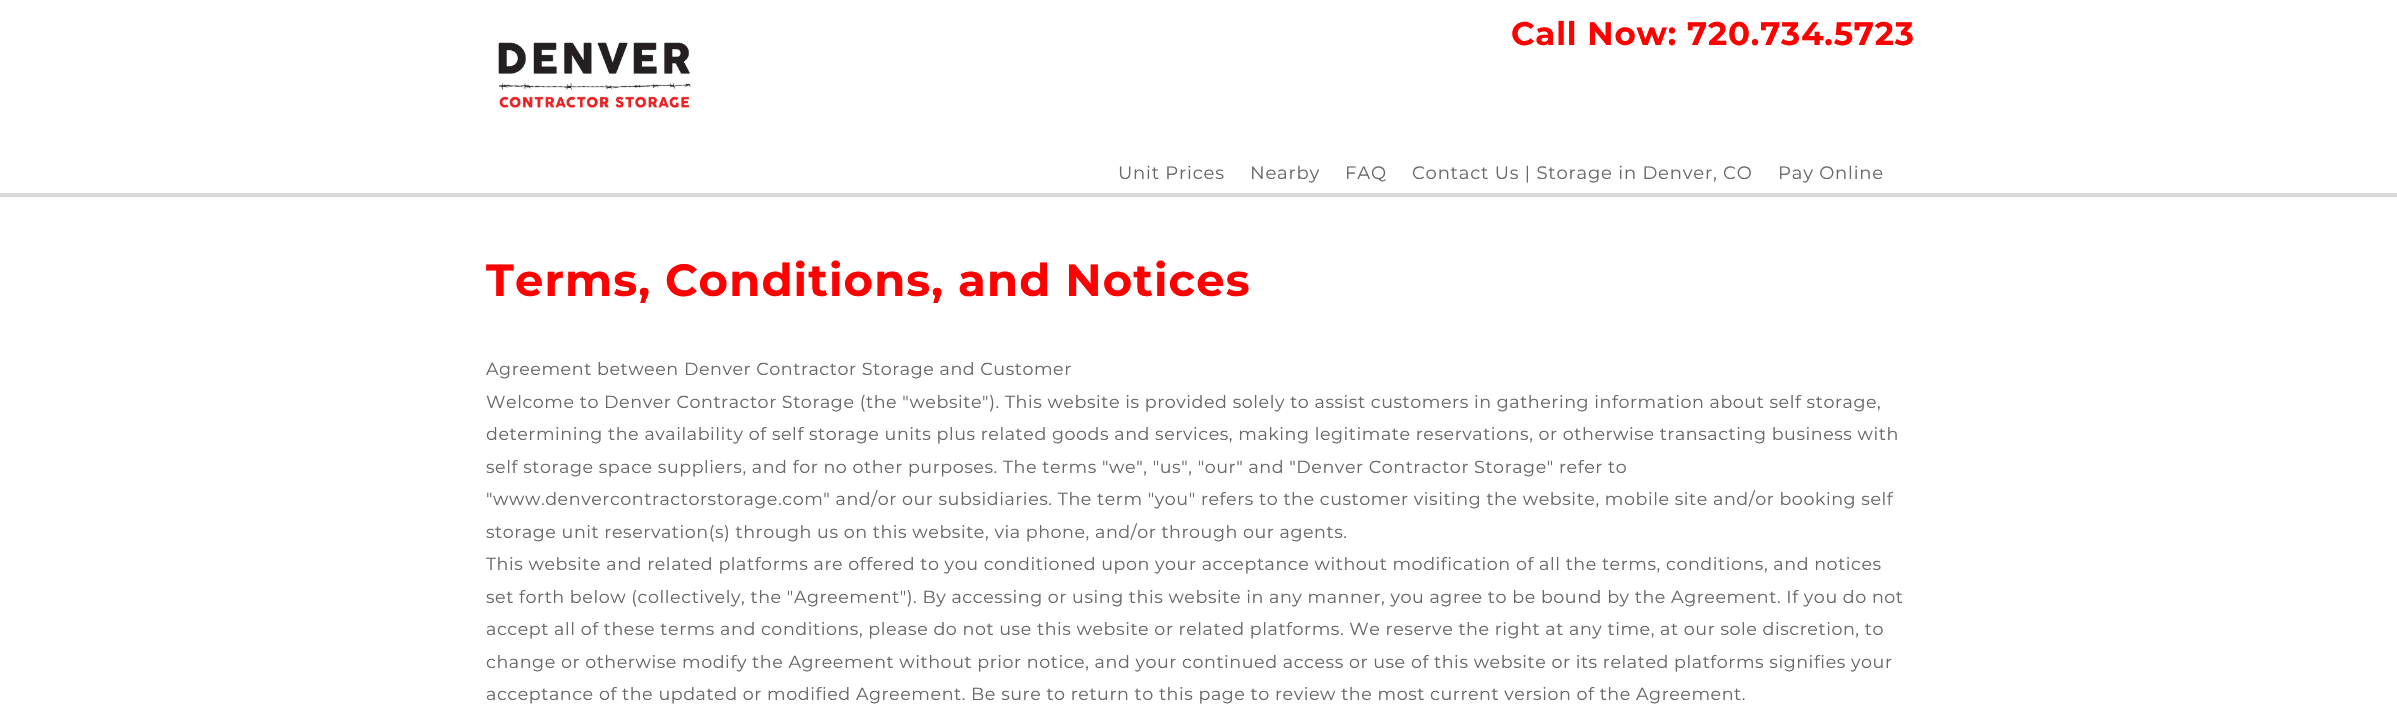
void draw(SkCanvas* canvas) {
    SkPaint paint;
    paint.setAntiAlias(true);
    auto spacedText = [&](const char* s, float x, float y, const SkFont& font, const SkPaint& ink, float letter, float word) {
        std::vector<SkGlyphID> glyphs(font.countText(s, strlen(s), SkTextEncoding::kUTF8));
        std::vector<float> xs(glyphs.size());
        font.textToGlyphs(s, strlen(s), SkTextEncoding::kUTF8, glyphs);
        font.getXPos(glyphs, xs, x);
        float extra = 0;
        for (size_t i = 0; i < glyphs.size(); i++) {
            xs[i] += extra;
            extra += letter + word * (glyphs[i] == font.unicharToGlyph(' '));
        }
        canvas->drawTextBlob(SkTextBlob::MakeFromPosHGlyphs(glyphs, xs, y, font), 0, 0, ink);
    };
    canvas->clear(0xFFFFFFFF);
    SkFont font1(fontMgr->matchFamilyStyle("Montserrat", SkFontStyle::Bold()), 32.5f);
    font1.setSubpixel(true);
    paint.setColor(0xFFFF0000);
    spacedText("Call Now: 720.734.5723", 1511, 45, font1, paint, 0.8f, 0);
    canvas->drawImageRect(SkImages::DeferredFromEncodedData(SkData::MakeFromFileName("img1.png")), SkRect::MakeXYWH(498, 42, 193, 66), SkSamplingOptions());
    paint.setColor(0xFFD9D9D9);
    canvas->drawRect(SkRect::MakeXYWH(0, 193, 2397, 4), paint);
    SkFont font2(fontMgr->matchFamilyStyle("Montserrat", SkFontStyle::Normal()), 18);
    font2.setSubpixel(true);
    paint.setColor(0xFF686868);
    spacedText("Unit Prices", 1118, 179, font2, paint, 0.8f, 0);
    spacedText("Nearby", 1250, 179, font2, paint, 0.8f, 0);
    spacedText("FAQ", 1345, 179, font2, paint, 0.8f, 0);
    spacedText("Contact Us | Storage in Denver, CO", 1412, 179, font2, paint, 0.8f, 0);
    spacedText("Pay Online", 1778, 179, font2, paint, 0.8f, 0);
    SkFont font3(fontMgr->matchFamilyStyle("Montserrat", SkFontStyle::Bold()), 45);
    font3.setSubpixel(true);
    paint.setColor(0xFFFF0000);
    spacedText("Terms, Conditions, and Notices", 486, 296, font3, paint, 1.1f, 0);
    SkFont font4(fontMgr->matchFamilyStyle("Montserrat", SkFontStyle::Normal()), 17.5f);
    font4.setSubpixel(true);
    paint.setColor(0xFF686868);
    spacedText("Agreement between Denver Contractor Storage and Customer", 486, 375, font4, paint, 0.56f, 0);
    spacedText("Welcome to Denver Contractor Storage (the \"website\"). This website is provided solely to assist customers in gathering information about self storage,", 486, 408, font4, paint, 0.56f, 0);
    spacedText("determining the availability of self storage units plus related goods and services, making legitimate reservations, or otherwise transacting business with", 486, 440, font4, paint, 0.56f, 0);
    spacedText("self storage space suppliers, and for no other purposes. The terms \"we\", \"us\", \"our\" and \"Denver Contractor Storage\" refer to", 486, 473, font4, paint, 0.56f, 0);
    spacedText("\"www.denvercontractorstorage.com\" and/or our subsidiaries. The term \"you\" refers to the customer visiting the website, mobile site and/or booking self", 486, 505, font4, paint, 0.56f, 0);
    spacedText("storage unit reservation(s) through us on this website, via phone, and/or through our agents.", 486, 538, font4, paint, 0.56f, 0);
    spacedText("This website and related platforms are offered to you conditioned upon your acceptance without modification of all the terms, conditions, and notices", 486, 570, font4, paint, 0.56f, 0);
    spacedText("set forth below (collectively, the \"Agreement\"). By accessing or using this website in any manner, you agree to be bound by the Agreement. If you do not", 486, 603, font4, paint, 0.56f, 0);
    spacedText("accept all of these terms and conditions, please do not use this website or related platforms. We reserve the right at any time, at our sole discretion, to", 486, 635, font4, paint, 0.56f, 0);
    spacedText("change or otherwise modify the Agreement without prior notice, and your continued access or use of this website or its related platforms signifies your", 486, 668, font4, paint, 0.56f, 0);
    spacedText("acceptance of the updated or modified Agreement. Be sure to return to this page to review the most current version of the Agreement.", 486, 700, font4, paint, 0.56f, 0);
}
